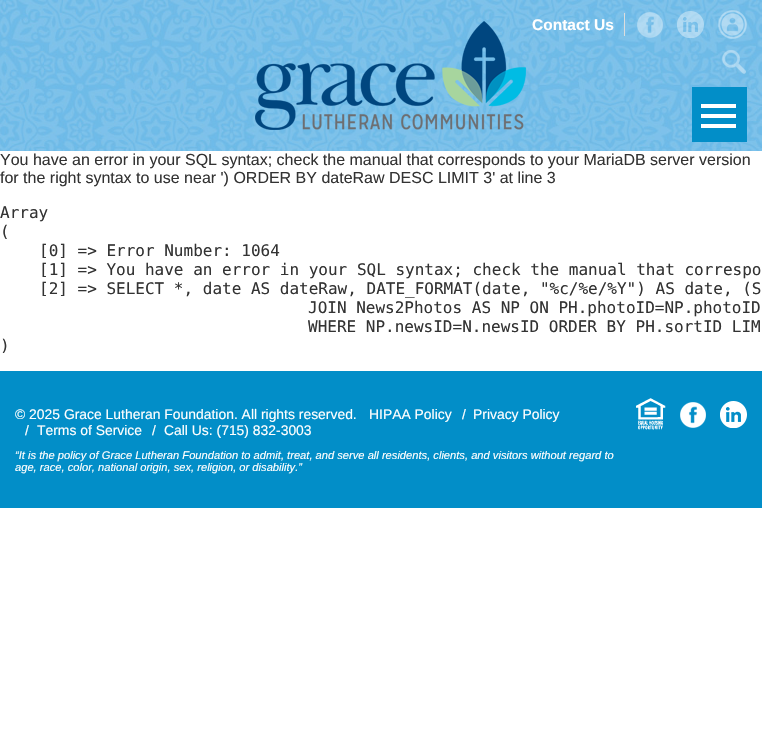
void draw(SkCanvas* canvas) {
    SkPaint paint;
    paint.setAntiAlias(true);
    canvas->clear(0xFFFFFFFF);
    canvas->drawImageRect(SkImages::DeferredFromEncodedData(SkData::MakeFromFileName("img1.png")), SkRect::MakeXYWH(0, 0, 762, 151), SkSamplingOptions());
    canvas->drawImageRect(SkImages::DeferredFromEncodedData(SkData::MakeFromFileName("img2.png")), SkRect::MakeXYWH(255, 21, 271, 109), SkSamplingOptions());
    paint.setColor(0xFFDDDDDD);
    canvas->drawRect(SkRect::MakeXYWH(624, 13, 1, 23), paint);
    SkFont font1(fontMgr->matchFamilyStyle("Liberation Sans", SkFontStyle::Bold()), 15.5f);
    font1.setSubpixel(true);
    paint.setColor(0xFFFFFFFF);
    canvas->drawString("Contact Us", 532, 30, font1, paint);
    canvas->drawImageRect(SkImages::DeferredFromEncodedData(SkData::MakeFromFileName("img3.png")), SkRect::MakeXYWH(637, 12, 26, 26), SkSamplingOptions());
    canvas->drawImageRect(SkImages::DeferredFromEncodedData(SkData::MakeFromFileName("img4.png")), SkRect::MakeXYWH(677, 11, 27, 27), SkSamplingOptions());
    canvas->drawImageRect(SkImages::DeferredFromEncodedData(SkData::MakeFromFileName("img5.png")), SkRect::MakeXYWH(718, 10, 29, 29), SkSamplingOptions());
    canvas->drawImageRect(SkImages::DeferredFromEncodedData(SkData::MakeFromFileName("img6.png")), SkRect::MakeXYWH(722, 50, 24, 24), SkSamplingOptions());
    paint.setColor(0xFF028EC8);
    canvas->drawRect(SkRect::MakeXYWH(692, 87, 55, 55), paint);
    paint.setColor(0xFFFFFFFF);
    canvas->drawRect(SkRect::MakeXYWH(701, 104, 35, 4), paint);
    canvas->drawRect(SkRect::MakeXYWH(701, 124, 35, 4), paint);
    canvas->drawRect(SkRect::MakeXYWH(701, 114, 35, 4), paint);
    SkFont font2(fontMgr->matchFamilyStyle("Liberation Sans", SkFontStyle::Normal()), 16);
    font2.setSubpixel(true);
    paint.setColor(0xFF333333);
    canvas->drawString("You have an error in your SQL syntax; check the manual that corresponds to your MariaDB server version", 0, 165, font2, paint);
    canvas->drawString("for the right syntax to use near ') ORDER BY dateRaw DESC LIMIT 3' at line 3", 0, 183, font2, paint);
    SkFont font3(fontMgr->matchFamilyStyle("DejaVu Sans Mono", SkFontStyle::Normal()), 16);
    font3.setSubpixel(true);
    canvas->drawString("Array", 0, 218, font3, paint);
    canvas->drawString("(", 0, 237, font3, paint);
    canvas->drawString("[0] => Error Number: 1064", 39, 256, font3, paint);
    canvas->drawString("[1] => You have an error in your SQL syntax; check the manual that correspo", 39, 275, font3, paint);
    canvas->drawString("[2] => SELECT *, date AS dateRaw, DATE_FORMAT(date, \"%c/%e/%Y\") AS date, (S", 39, 294, font3, paint);
    canvas->drawString("JOIN News2Photos AS NP ON PH.photoID=NP.photoID", 308, 313, font3, paint);
    canvas->drawString("WHERE NP.newsID=N.newsID ORDER BY PH.sortID LIM", 308, 332, font3, paint);
    canvas->drawString(")", 0, 351, font3, paint);
    paint.setColor(0xFF028EC8);
    canvas->drawRect(SkRect::MakeXYWH(0, 371, 762, 137), paint);
    SkFont font4(fontMgr->matchFamilyStyle("Liberation Sans", SkFontStyle::Normal()), 13.9f);
    font4.setSubpixel(true);
    paint.setColor(0xFFFFFFFF);
    canvas->drawString("© 2025 Grace Lutheran Foundation. All rights reserved.", 15, 419, font4, paint);
    canvas->drawString("HIPAA Policy", 369, 419, font4, paint);
    canvas->drawString("/", 462, 419, font4, paint);
    canvas->drawString("Privacy Policy", 473, 419, font4, paint);
    canvas->drawString("/", 25, 435, font4, paint);
    canvas->drawString("Terms of Service", 37, 435, font4, paint);
    canvas->drawString("/", 152, 435, font4, paint);
    canvas->drawString("Call Us: (715) 832-3003", 164, 435, font4, paint);
    canvas->drawImageRect(SkImages::DeferredFromEncodedData(SkData::MakeFromFileName("img7.png")), SkRect::MakeXYWH(636, 398, 30, 32), SkSamplingOptions());
    canvas->drawImageRect(SkImages::DeferredFromEncodedData(SkData::MakeFromFileName("img8.png")), SkRect::MakeXYWH(680, 402, 26, 26), SkSamplingOptions());
    canvas->drawImageRect(SkImages::DeferredFromEncodedData(SkData::MakeFromFileName("img9.png")), SkRect::MakeXYWH(720, 401, 27, 27), SkSamplingOptions());
    SkFont font5(fontMgr->matchFamilyStyle("Liberation Sans", SkFontStyle::Italic()), 11.15f);
    font5.setSubpixel(true);
    canvas->drawString("“It is the policy of Grace Lutheran Foundation to admit, treat, and serve all residents, clients, and visitors without regard to", 15, 459, font5, paint);
    canvas->drawString("age, race, color, national origin, sex, religion, or disability.”", 15, 471, font5, paint);
}
